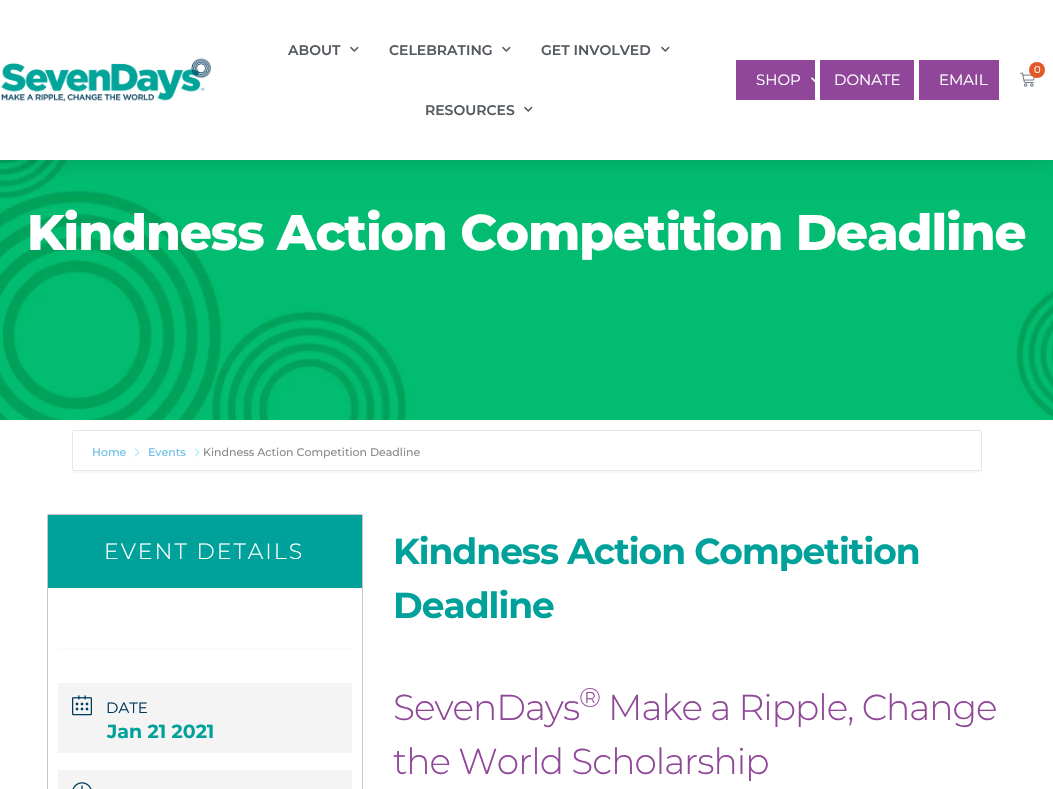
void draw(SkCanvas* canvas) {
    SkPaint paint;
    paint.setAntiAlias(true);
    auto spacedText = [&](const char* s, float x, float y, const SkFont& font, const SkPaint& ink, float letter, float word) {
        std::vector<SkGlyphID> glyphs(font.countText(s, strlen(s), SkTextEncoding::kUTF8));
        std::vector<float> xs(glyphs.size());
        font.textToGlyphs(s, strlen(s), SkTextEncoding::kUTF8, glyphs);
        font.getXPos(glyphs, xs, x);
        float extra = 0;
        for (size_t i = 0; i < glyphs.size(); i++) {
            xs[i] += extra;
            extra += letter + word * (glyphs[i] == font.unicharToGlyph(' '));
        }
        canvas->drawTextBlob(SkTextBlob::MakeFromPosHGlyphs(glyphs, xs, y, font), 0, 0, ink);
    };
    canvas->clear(0xFFFFFFFF);
    canvas->drawImageRect(SkImages::DeferredFromEncodedData(SkData::MakeFromFileName("img5.png")), SkRect::MakeXYWH(0, 160, 1053, 260), SkSamplingOptions());
    paint.setColor(0x26000000);
    paint.setMaskFilter(SkMaskFilter::MakeBlur(kNormal_SkBlurStyle, 12));
    canvas->drawRect(SkRect::MakeXYWH(0, 0, 1053, 160), paint);
    paint.setMaskFilter(nullptr);
    paint.setColor(0xFFFFFFFF);
    canvas->drawRect(SkRect::MakeXYWH(0, 0, 1053, 160), paint);
    canvas->drawImageRect(SkImages::DeferredFromEncodedData(SkData::MakeFromFileName("img1.png")), SkRect::MakeXYWH(1, 58, 210, 44), SkSamplingOptions());
    SkFont font1(fontMgr->matchFamilyStyle("Montserrat", SkFontStyle(600, SkFontStyle::kNormal_Width, SkFontStyle::kUpright_Slant)), 14);
    font1.setSubpixel(true);
    paint.setColor(0xFF54595F);
    canvas->drawString("ABOUT", 288, 55, font1, paint);
    canvas->drawImageRect(SkImages::DeferredFromEncodedData(SkData::MakeFromFileName("img2.png")), SkRect::MakeXYWH(350, 46, 9, 6), SkSamplingOptions());
    canvas->drawString("CELEBRATING", 389, 55, font1, paint);
    canvas->drawImageRect(SkImages::DeferredFromEncodedData(SkData::MakeFromFileName("img2.png")), SkRect::MakeXYWH(502, 46, 9, 6), SkSamplingOptions());
    canvas->drawString("GET INVOLVED", 541, 55, font1, paint);
    canvas->drawImageRect(SkImages::DeferredFromEncodedData(SkData::MakeFromFileName("img2.png")), SkRect::MakeXYWH(661, 46, 9, 6), SkSamplingOptions());
    canvas->drawString("RESOURCES", 425, 115, font1, paint);
    canvas->drawImageRect(SkImages::DeferredFromEncodedData(SkData::MakeFromFileName("img2.png")), SkRect::MakeXYWH(524, 106, 9, 6), SkSamplingOptions());
    canvas->drawImageRect(SkImages::DeferredFromEncodedData(SkData::MakeFromFileName("img3.png")), SkRect::MakeXYWH(1020, 72, 15, 15), SkSamplingOptions());
    paint.setColor(0xFFE15829);
    canvas->drawCircle(1037, 70, 8, paint);
    SkFont font2(fontMgr->matchFamilyStyle("Montserrat", SkFontStyle::Normal()), 10);
    font2.setSubpixel(true);
    paint.setColor(0xFFFFFFFF);
    canvas->drawString("0", 1034, 73, font2, paint);
    paint.setColor(0xFF904799);
    canvas->drawRect(SkRect::MakeXYWH(736, 60, 79, 40), paint);
    SkFont font3(fontMgr->matchFamilyStyle("Montserrat", SkFontStyle::Normal()), 15);
    font3.setSubpixel(true);
    paint.setColor(0xFFFFFFFF);
    canvas->drawString("SHOP", 756, 85, font3, paint);
    canvas->drawImageRect(SkImages::DeferredFromEncodedData(SkData::MakeFromFileName("img4.png")), SkRect::MakeXYWH(811, 77, 4, 6), SkSamplingOptions());
    paint.setColor(0xFF904799);
    canvas->drawRect(SkRect::MakeXYWH(820, 60, 94, 40), paint);
    paint.setColor(0xFFFFFFFF);
    canvas->drawString("DONATE", 834, 85, font3, paint);
    paint.setColor(0xFF904799);
    canvas->drawRect(SkRect::MakeXYWH(919, 60, 80, 40), paint);
    paint.setColor(0xFFFFFFFF);
    canvas->drawString("EMAIL", 939, 85, font3, paint);
    SkFont font4(fontMgr->matchFamilyStyle("Montserrat", SkFontStyle(800, SkFontStyle::kNormal_Width, SkFontStyle::kUpright_Slant)), 50);
    font4.setSubpixel(true);
    spacedText("Kindness Action Competition Deadline", 27, 250, font4, paint, -1, 0);
    paint.setColor(0xFFF9F9F9);
    canvas->drawPath(SkPathBuilder().moveTo(72, 469).cubicTo(72, 471, 72, 473, 74, 473).lineTo(980, 473).lineTo(982, 472).lineTo(982, 469).cubicTo(982, 470, 981, 471, 980, 471).lineTo(74, 471).cubicTo(73, 471, 72, 470, 72, 469).close().detach(), paint);
    paint.setStyle(SkPaint::kStroke_Style);
    paint.setStrokeWidth(1);
    paint.setColor(0xFFE6E6E6);
    canvas->drawRoundRect(SkRect::MakeXYWH(72.5f, 430.5f, 909, 40), 1.5f, 1.5f, paint);
    SkFont font5(fontMgr->matchFamilyStyle("Montserrat", SkFontStyle(500, SkFontStyle::kNormal_Width, SkFontStyle::kUpright_Slant)), 11);
    font5.setSubpixel(true);
    paint.setStyle(SkPaint::kFill_Style);
    paint.setColor(0xFF6EC1E4);
    canvas->drawString("Home", 92, 456, font5, paint);
    canvas->drawImageRect(SkImages::DeferredFromEncodedData(SkData::MakeFromFileName("img6.png")), SkRect::MakeXYWH(134, 448, 6, 9), SkSamplingOptions());
    canvas->drawString("Events", 148, 456, font5, paint);
    canvas->drawImageRect(SkImages::DeferredFromEncodedData(SkData::MakeFromFileName("img6.png")), SkRect::MakeXYWH(194, 448, 6, 9), SkSamplingOptions());
    paint.setColor(0xFF8D8D8D);
    canvas->drawString("Kindness Action Competition Deadline", 203, 456, font5, paint);
    paint.setStyle(SkPaint::kStroke_Style);
    paint.setColor(0xFFC9C7C7);
    canvas->drawRoundRect(SkRect::MakeXYWH(47.5f, 514.5f, 315, 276), 0.5f, 0.5f, paint);
    paint.setStyle(SkPaint::kFill_Style);
    paint.setColor(0xFF00A19A);
    canvas->drawRect(SkRect::MakeXYWH(48, 515, 314, 73), paint);
    SkFont font6(fontMgr->matchFamilyStyle("Montserrat", SkFontStyle(300, SkFontStyle::kNormal_Width, SkFontStyle::kUpright_Slant)), 22);
    font6.setSubpixel(true);
    paint.setColor(0xFFFFFFFF);
    spacedText("EVENT DETAILS", 104, 559, font6, paint, 2, 0);
    paint.setColor(0xFFFBFBFB);
    canvas->drawRect(SkRect::MakeXYWH(58, 648, 294, 2), paint);
    paint.setColor(0xFFF4F4F4);
    canvas->drawRect(SkRect::MakeXYWH(58, 683, 294, 70), paint);
    canvas->drawImageRect(SkImages::DeferredFromEncodedData(SkData::MakeFromFileName("img7.png")), SkRect::MakeXYWH(72, 695, 20, 21), SkSamplingOptions());
    paint.setColor(0xFF003A5C);
    canvas->drawString("DATE", 106, 713, font3, paint);
    SkFont font7(fontMgr->matchFamilyStyle("Montserrat", SkFontStyle::Bold()), 19);
    font7.setSubpixel(true);
    paint.setColor(0xFF00A19A);
    canvas->drawString("Jan 21 2021", 107, 738, font7, paint);
    paint.setColor(0xFFF4F4F4);
    canvas->drawRect(SkRect::MakeXYWH(58, 770, 294, 19), paint);
    canvas->drawImageRect(SkImages::DeferredFromEncodedData(SkData::MakeFromFileName("img8.png")), SkRect::MakeXYWH(72, 782, 20, 7), SkSamplingOptions());
    SkFont font8(fontMgr->matchFamilyStyle("Montserrat", SkFontStyle::Bold()), 36);
    font8.setSubpixel(true);
    paint.setColor(0xFF00A19A);
    spacedText("Kindness Action Competition", 393, 564, font8, paint, -1, 0);
    spacedText("Deadline", 393, 618, font8, paint, -1, 0);
    SkFont font9(fontMgr->matchFamilyStyle("Montserrat", SkFontStyle(300, SkFontStyle::kNormal_Width, SkFontStyle::kUpright_Slant)), 36);
    font9.setSubpixel(true);
    paint.setColor(0xFF904799);
    spacedText("SevenDays", 393, 720, font9, paint, -1, 0);
    SkFont font10(fontMgr->matchFamilyStyle("Montserrat", SkFontStyle(300, SkFontStyle::kNormal_Width, SkFontStyle::kUpright_Slant)), 27);
    font10.setSubpixel(true);
    spacedText("®", 579, 707, font10, paint, -1, 0);
    spacedText("Make a Ripple, Change", 608, 720, font9, paint, -1, 0);
    spacedText("the World Scholarship", 393, 774, font9, paint, -1, 0);
}
